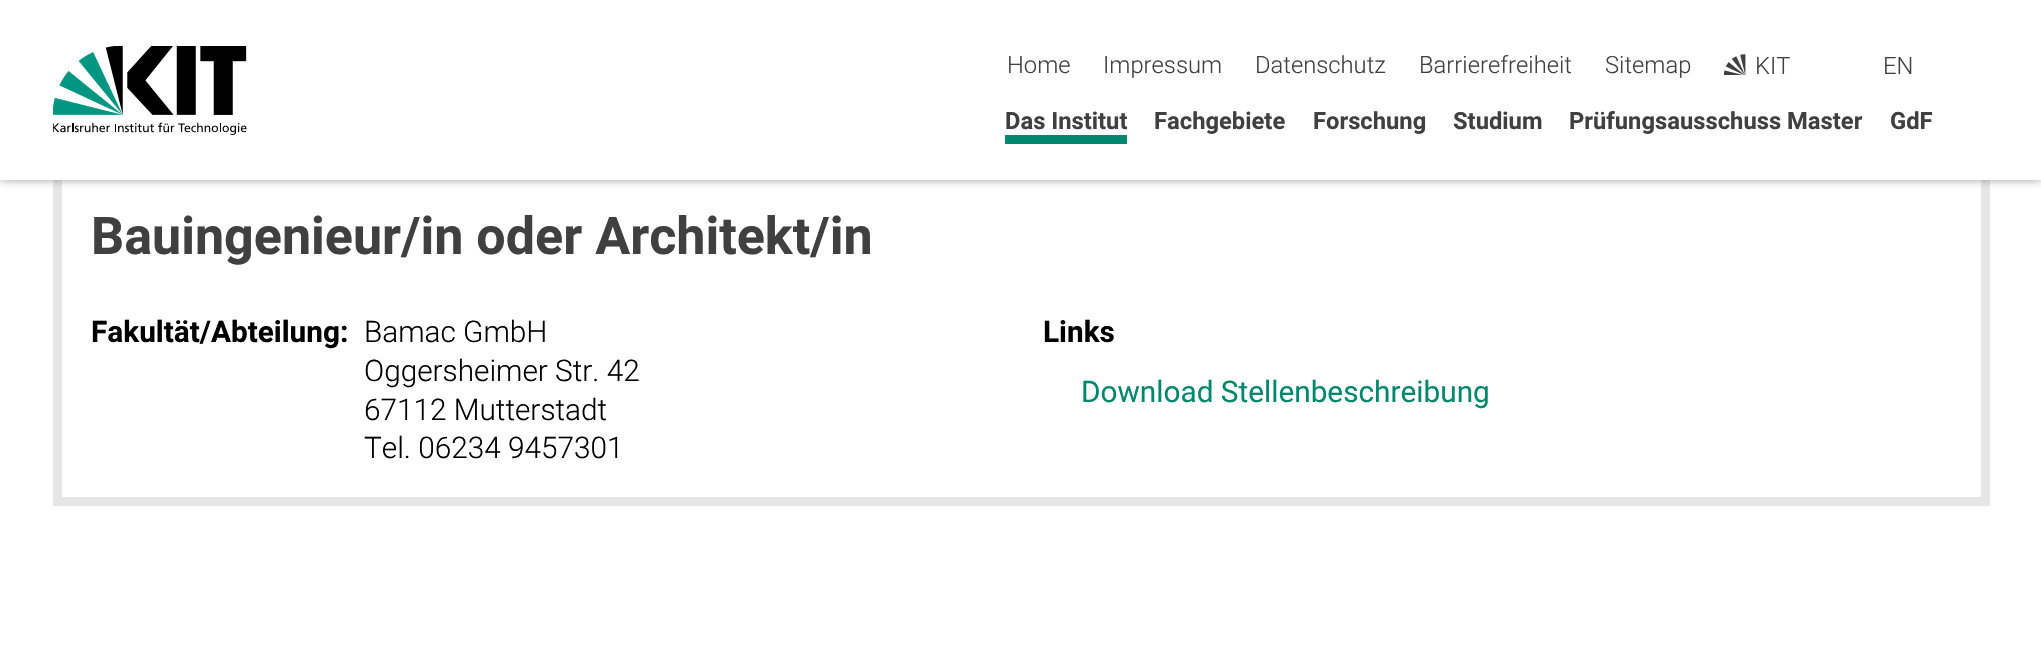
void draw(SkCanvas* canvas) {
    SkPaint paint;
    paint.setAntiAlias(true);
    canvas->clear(0xFFFFFFFF);
    paint.setStyle(SkPaint::kStroke_Style);
    paint.setStrokeWidth(9);
    paint.setColor(0xFFE6E6E6);
    canvas->drawRect(SkRect::MakeXYWH(57.5f, 170.5f, 1928, 331), paint);
    paint.setStyle(SkPaint::kFill_Style);
    paint.setColor(0x80404040);
    paint.setMaskFilter(SkMaskFilter::MakeBlur(kNormal_SkBlurStyle, 4.5f));
    canvas->drawRect(SkRect::MakeXYWH(0, 0, 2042, 180), paint);
    paint.setMaskFilter(nullptr);
    paint.setColor(0xFFFFFFFF);
    canvas->drawRect(SkRect::MakeXYWH(0, 0, 2041, 180), paint);
    canvas->drawImageRect(SkImages::DeferredFromEncodedData(SkData::MakeFromFileName("img1.png")), SkRect::MakeXYWH(53, 46, 194, 89), SkSamplingOptions());
    SkFont font1(fontMgr->matchFamilyStyle("Roboto", SkFontStyle(300, SkFontStyle::kNormal_Width, SkFontStyle::kUpright_Slant)), 23.75f);
    font1.setSubpixel(true);
    paint.setColor(0xFF404040);
    canvas->drawString("Home", 1007, 73, font1, paint);
    canvas->drawString("Impressum", 1103, 73, font1, paint);
    canvas->drawString("Datenschutz", 1255, 73, font1, paint);
    canvas->drawString("Barrierefreiheit", 1419, 73, font1, paint);
    canvas->drawString("Sitemap", 1605, 73, font1, paint);
    canvas->drawImageRect(SkImages::DeferredFromEncodedData(SkData::MakeFromFileName("img2.png")), SkRect::MakeXYWH(1724, 54, 22, 21), SkSamplingOptions());
    canvas->drawString("KIT", 1755, 74, font1, paint);
    canvas->drawString("EN", 1883, 74, font1, paint);
    SkFont font2(fontMgr->matchFamilyStyle("Roboto", SkFontStyle::Bold()), 23.75f);
    font2.setSubpixel(true);
    canvas->drawString("Das Institut", 1005, 129, font2, paint);
    paint.setColor(0xFF00876C);
    canvas->drawRect(SkRect::MakeXYWH(1005, 135, 122, 9), paint);
    paint.setColor(0xFF404040);
    canvas->drawString("Fachgebiete", 1154, 129, font2, paint);
    canvas->drawString("Forschung", 1313, 129, font2, paint);
    canvas->drawString("Studium", 1453, 129, font2, paint);
    canvas->drawString("Prüfungsausschuss Master", 1569, 129, font2, paint);
    canvas->drawString("GdF", 1890, 129, font2, paint);
    SkFont font3(fontMgr->matchFamilyStyle("Roboto", SkFontStyle::Bold()), 52);
    font3.setSubpixel(true);
    canvas->drawString("Bauingenieur/in oder Architekt/in", 91, 254, font3, paint);
    SkFont font4(fontMgr->matchFamilyStyle("Roboto", SkFontStyle::Bold()), 29.75f);
    font4.setSubpixel(true);
    paint.setColor(0xFF000000);
    canvas->drawString("Fakultät/Abteilung:", 91, 342, font4, paint);
    SkFont font5(fontMgr->matchFamilyStyle("Roboto", SkFontStyle(300, SkFontStyle::kNormal_Width, SkFontStyle::kUpright_Slant)), 29.75f);
    font5.setSubpixel(true);
    canvas->drawString("Bamac GmbH", 364, 342, font5, paint);
    canvas->drawString("Oggersheimer Str. 42", 364, 381, font5, paint);
    canvas->drawString("67112 Mutterstadt", 364, 420, font5, paint);
    canvas->drawString("Tel. 06234 9457301", 364, 458, font5, paint);
    canvas->drawString("Links", 1043, 342, font4, paint);
    SkFont font6(fontMgr->matchFamilyStyle("Roboto", SkFontStyle::Normal()), 29.75f);
    font6.setSubpixel(true);
    paint.setColor(0xFF00876C);
    canvas->drawString("Download Stellenbeschreibung", 1081, 402, font6, paint);
}
